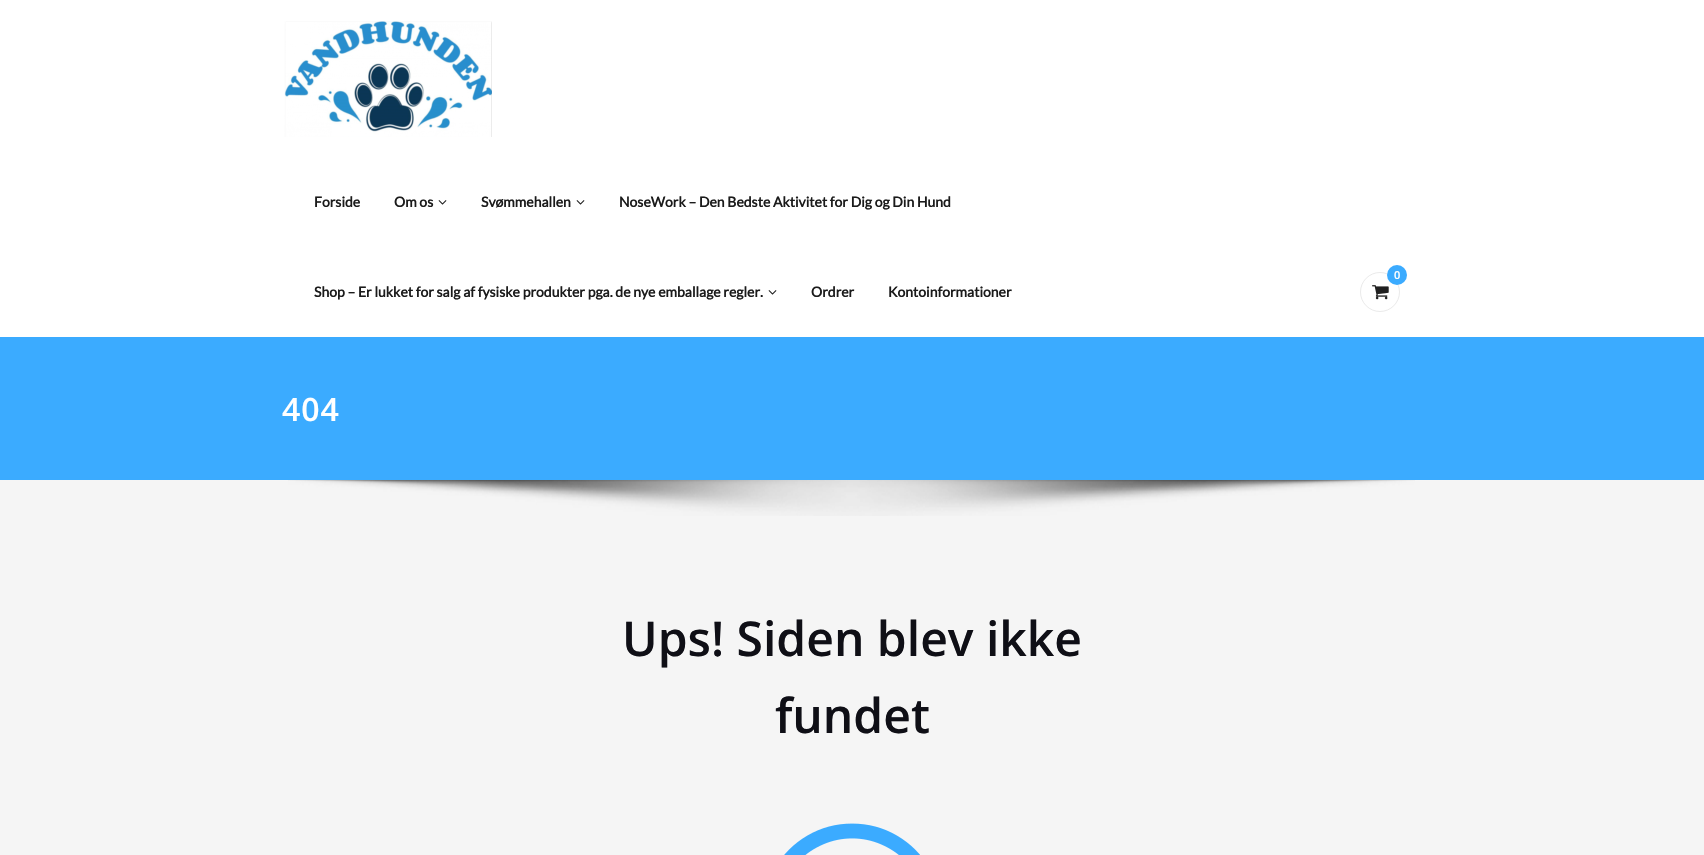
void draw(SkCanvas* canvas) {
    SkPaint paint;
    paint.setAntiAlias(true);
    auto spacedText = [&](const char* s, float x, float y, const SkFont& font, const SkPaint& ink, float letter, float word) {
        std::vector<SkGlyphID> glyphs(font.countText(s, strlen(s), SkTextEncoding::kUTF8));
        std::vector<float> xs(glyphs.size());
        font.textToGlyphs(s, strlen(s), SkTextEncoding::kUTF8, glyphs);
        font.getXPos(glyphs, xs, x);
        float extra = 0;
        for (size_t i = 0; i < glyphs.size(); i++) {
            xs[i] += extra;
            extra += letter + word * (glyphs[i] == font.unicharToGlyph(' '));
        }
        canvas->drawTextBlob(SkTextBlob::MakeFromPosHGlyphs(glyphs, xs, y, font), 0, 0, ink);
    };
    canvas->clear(0xFFF5F5F5);
    paint.setColor(0xFFFFFFFF);
    canvas->drawRect(SkRect::MakeXYWH(0, 0, 1704, 337), paint);
    canvas->drawImageRect(SkImages::DeferredFromEncodedData(SkData::MakeFromFileName("img1.png")), SkRect::MakeXYWH(284, 21, 208, 116), SkSamplingOptions());
    SkFont font1(fontMgr->matchFamilyStyle("Lato", SkFontStyle::Bold()), 14);
    font1.setSubpixel(true);
    paint.setColor(0xFF1B1B1B);
    canvas->drawString("Forside", 314, 207, font1, paint);
    canvas->drawString("Om os", 394, 207, font1, paint);
    canvas->drawImageRect(SkImages::DeferredFromEncodedData(SkData::MakeFromFileName("img2.png")), SkRect::MakeXYWH(438, 200, 9, 5), SkSamplingOptions());
    canvas->drawString("Svømmehallen", 481, 207, font1, paint);
    canvas->drawImageRect(SkImages::DeferredFromEncodedData(SkData::MakeFromFileName("img2.png")), SkRect::MakeXYWH(576, 200, 9, 5), SkSamplingOptions());
    canvas->drawString("NoseWork – Den Bedste Aktivitet for Dig og Din Hund", 619, 207, font1, paint);
    paint.setStyle(SkPaint::kStroke_Style);
    paint.setStrokeWidth(1);
    paint.setColor(0xFFEAEAEA);
    canvas->drawCircle(1380, 292, 19.5f, paint);
    paint.setStyle(SkPaint::kFill_Style);
    paint.setColor(0xFF3BABFF);
    canvas->drawCircle(1397, 275, 10, paint);
    SkFont font2(fontMgr->matchFamilyStyle("Open Sans", SkFontStyle(600, SkFontStyle::kNormal_Width, SkFontStyle::kUpright_Slant)), 11);
    font2.setSubpixel(true);
    paint.setColor(0xFFFFFFFF);
    canvas->drawString("0", 1394, 279, font2, paint);
    canvas->drawImageRect(SkImages::DeferredFromEncodedData(SkData::MakeFromFileName("img3.png")), SkRect::MakeXYWH(1372, 285, 17, 15), SkSamplingOptions());
    paint.setColor(0xFF1B1B1B);
    canvas->drawString("Shop – Er lukket for salg af fysiske produkter pga. de nye emballage regler.", 314, 297, font1, paint);
    canvas->drawImageRect(SkImages::DeferredFromEncodedData(SkData::MakeFromFileName("img2.png")), SkRect::MakeXYWH(768, 290, 9, 5), SkSamplingOptions());
    canvas->drawString("Ordrer", 811, 297, font1, paint);
    canvas->drawString("Kontoinformationer", 888, 297, font1, paint);
    paint.setColor(0xFF3BABFF);
    canvas->drawRect(SkRect::MakeXYWH(0, 337, 1704, 143), paint);
    SkFont font3(fontMgr->matchFamilyStyle("Open Sans", SkFontStyle(600, SkFontStyle::kNormal_Width, SkFontStyle::kUpright_Slant)), 32);
    font3.setSubpixel(true);
    paint.setColor(0xFFFFFFFF);
    spacedText("404", 282, 421, font3, paint, 1, 0);
    canvas->drawImageRect(SkImages::DeferredFromEncodedData(SkData::MakeFromFileName("img4.png")), SkRect::MakeXYWH(288, 480, 1127, 36), SkSamplingOptions());
    SkFont font4(fontMgr->matchFamilyStyle("Open Sans", SkFontStyle(600, SkFontStyle::kNormal_Width, SkFontStyle::kUpright_Slant)), 48);
    font4.setSubpixel(true);
    paint.setColor(0xFF0F0F16);
    canvas->drawString("Ups! Siden blev ikke", 622, 656, font4, paint);
    canvas->drawString("fundet", 775, 733, font4, paint);
    canvas->drawImageRect(SkImages::DeferredFromEncodedData(SkData::MakeFromFileName("img5.png")), SkRect::MakeXYWH(784, 823, 136, 32), SkSamplingOptions());
}
